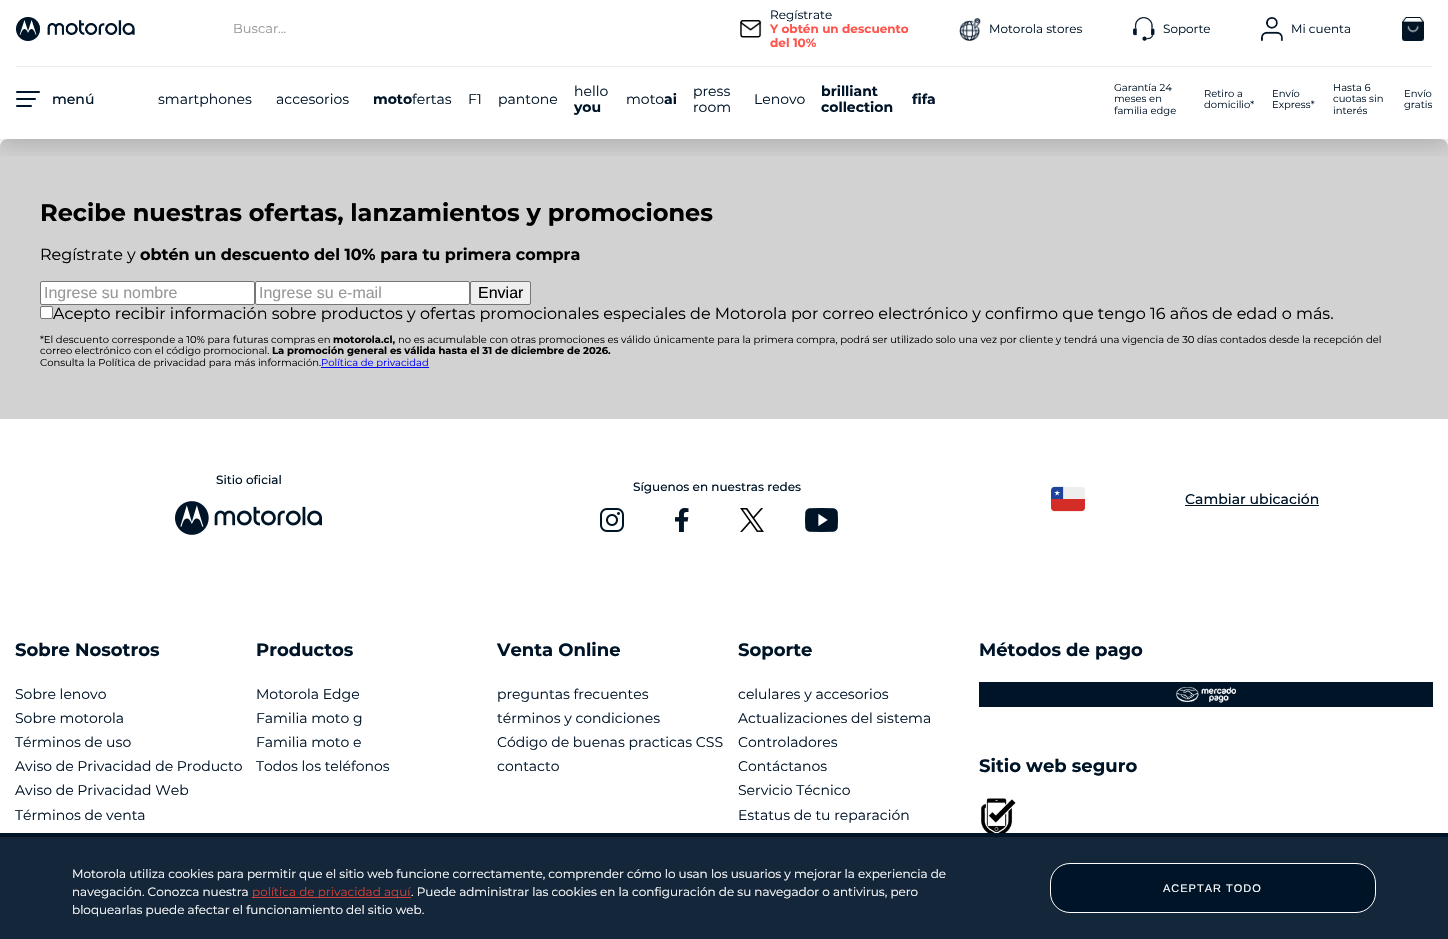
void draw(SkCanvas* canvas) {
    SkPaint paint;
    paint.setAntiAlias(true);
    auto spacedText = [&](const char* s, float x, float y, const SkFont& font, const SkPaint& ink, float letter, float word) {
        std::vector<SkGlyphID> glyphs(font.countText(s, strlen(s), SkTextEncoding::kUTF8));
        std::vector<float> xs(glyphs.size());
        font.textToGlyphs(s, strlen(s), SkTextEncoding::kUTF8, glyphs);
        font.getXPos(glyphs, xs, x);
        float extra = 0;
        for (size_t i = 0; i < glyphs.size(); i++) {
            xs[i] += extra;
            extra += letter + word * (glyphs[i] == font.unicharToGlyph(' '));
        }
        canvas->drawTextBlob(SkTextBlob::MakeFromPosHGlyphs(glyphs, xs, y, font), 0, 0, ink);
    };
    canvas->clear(0xFFFFFFFF);
    paint.setColor(0xFFD2D2D2);
    canvas->drawPath(SkPathBuilder().moveTo(8, 139).lineTo(1440, 139).cubicTo(1444.5f, 139, 1448, 142.5f, 1448, 147).lineTo(1448, 419).lineTo(0, 419).lineTo(0, 147).cubicTo(0, 142.5f, 3.5f, 139, 8, 139).close().detach(), paint);
    canvas->save();
    canvas->clipRect(SkRect::MakeXYWH(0, 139, 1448, 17));
    paint.setColor(0x29000000);
    paint.setMaskFilter(SkMaskFilter::MakeBlur(kNormal_SkBlurStyle, 10));
    canvas->drawRect(SkRect::MakeXYWH(0, 6, 1448, 139), paint);
    paint.setMaskFilter(nullptr);
    canvas->restore();
    canvas->drawImageRect(SkImages::DeferredFromEncodedData(SkData::MakeFromFileName("img1.png")), SkRect::MakeXYWH(16, 17, 119, 24), SkSamplingOptions());
    SkFont font1(fontMgr->matchFamilyStyle("Montserrat", SkFontStyle::Normal()), 13);
    font1.setSubpixel(true);
    paint.setColor(0xFF979899);
    canvas->drawString("Buscar...", 233, 33, font1, paint);
    canvas->drawImageRect(SkImages::DeferredFromEncodedData(SkData::MakeFromFileName("img2.png")), SkRect::MakeXYWH(740, 20, 22, 18), SkSamplingOptions());
    SkFont font2(fontMgr->matchFamilyStyle("Montserrat", SkFontStyle::Normal()), 12);
    font2.setSubpixel(true);
    paint.setColor(0xFF001428);
    canvas->drawString("Regístrate", 770, 19, font2, paint);
    SkFont font3(fontMgr->matchFamilyStyle("Montserrat", SkFontStyle::Bold()), 12);
    font3.setSubpixel(true);
    paint.setColor(0xFFFF554D);
    canvas->drawString("Y obtén un descuento", 770, 33, font3, paint);
    canvas->drawString("del 10%", 770, 47, font3, paint);
    canvas->drawImageRect(SkImages::DeferredFromEncodedData(SkData::MakeFromFileName("img3.png")), SkRect::MakeXYWH(959, 18, 22, 23), SkSamplingOptions());
    paint.setColor(0xFF001428);
    canvas->drawString("Motorola stores", 989, 33, font2, paint);
    canvas->drawImageRect(SkImages::DeferredFromEncodedData(SkData::MakeFromFileName("img4.png")), SkRect::MakeXYWH(1133, 17, 22, 24), SkSamplingOptions());
    canvas->drawString("Soporte", 1163, 33, font2, paint);
    canvas->drawImageRect(SkImages::DeferredFromEncodedData(SkData::MakeFromFileName("img5.png")), SkRect::MakeXYWH(1261, 17, 22, 24), SkSamplingOptions());
    canvas->drawString("Mi cuenta", 1291, 33, font2, paint);
    canvas->drawImageRect(SkImages::DeferredFromEncodedData(SkData::MakeFromFileName("img6.png")), SkRect::MakeXYWH(1402, 17, 22, 24), SkSamplingOptions());
    paint.setColor(0xFFEBEBEB);
    canvas->drawRect(SkRect::MakeXYWH(16, 66, 1416, 1), paint);
    paint.setColor(0xFF001428);
    canvas->drawRoundRect(SkRect::MakeXYWH(16, 91, 24, 2), 1, 1, paint);
    canvas->drawRoundRect(SkRect::MakeXYWH(16, 98, 20, 2), 1, 1, paint);
    canvas->drawRoundRect(SkRect::MakeXYWH(16, 105, 16, 2), 1, 1, paint);
    SkFont font4(fontMgr->matchFamilyStyle("Montserrat", SkFontStyle(500, SkFontStyle::kNormal_Width, SkFontStyle::kUpright_Slant)), 14);
    font4.setSubpixel(true);
    canvas->drawString("menú", 52, 104, font4, paint);
    SkFont font5(fontMgr->matchFamilyStyle("Montserrat", SkFontStyle::Normal()), 14);
    font5.setSubpixel(true);
    canvas->drawString("smartphones", 158, 104, font5, paint);
    canvas->drawString("accesorios", 276, 104, font5, paint);
    SkFont font6(fontMgr->matchFamilyStyle("Montserrat", SkFontStyle::Bold()), 14);
    font6.setSubpixel(true);
    canvas->drawString("moto", 373, 104, font6, paint);
    canvas->drawString("fertas", 412, 104, font5, paint);
    canvas->drawString("F1", 468, 104, font5, paint);
    canvas->drawString("pantone", 498, 104, font5, paint);
    canvas->drawString("hello", 574, 96, font5, paint);
    canvas->drawString("you", 574, 112, font6, paint);
    canvas->drawString("moto", 626, 104, font5, paint);
    canvas->drawString("ai", 664, 104, font6, paint);
    canvas->drawString("press", 693, 96, font5, paint);
    canvas->drawString("room", 693, 112, font5, paint);
    canvas->drawString("Lenovo", 754, 104, font5, paint);
    canvas->drawString("brilliant", 821, 96, font6, paint);
    canvas->drawString("collection", 821, 112, font6, paint);
    canvas->drawString("fifa", 912, 104, font6, paint);
    SkFont font7(fontMgr->matchFamilyStyle("Montserrat", SkFontStyle::Normal()), 10);
    font7.setSubpixel(true);
    canvas->drawString("Garantía 24", 1114, 91, font7, paint);
    canvas->drawString("meses en", 1114, 102, font7, paint);
    canvas->drawString("familia edge", 1114, 114, font7, paint);
    canvas->drawString("Retiro a", 1204, 97, font7, paint);
    canvas->drawString("domicilio*", 1204, 108, font7, paint);
    canvas->drawString("Envío", 1272, 97, font7, paint);
    canvas->drawString("Express*", 1272, 108, font7, paint);
    canvas->drawString("Hasta 6", 1333, 91, font7, paint);
    canvas->drawString("cuotas sin", 1333, 102, font7, paint);
    canvas->drawString("interés", 1333, 114, font7, paint);
    canvas->drawString("Envío", 1404, 97, font7, paint);
    canvas->drawString("gratis", 1404, 108, font7, paint);
    canvas->drawImageRect(SkImages::DeferredFromEncodedData(SkData::MakeFromFileName("img14.png")), SkRect::MakeXYWH(981, 798, 35, 40), SkSamplingOptions());
    paint.setColor(0xEB001428);
    canvas->drawRect(SkRect::MakeXYWH(0, 837, 1448, 102), paint);
    paint.setColor(0xFF001428);
    canvas->drawRect(SkRect::MakeXYWH(0, 833, 1448, 4), paint);
    paint.setColor(0xFFFFFFFF);
    canvas->drawString("Motorola utiliza cookies para permitir que el sitio web funcione correctamente, comprender cómo lo usan los usuarios y mejorar la experiencia de", 72, 878, font2, paint);
    canvas->drawString("navegación. Conozca nuestra", 72, 896, font2, paint);
    paint.setColor(0xFFCF4039);
    canvas->drawRect(SkRect::MakeXYWH(252, 897, 159, 1), paint);
    canvas->drawString("política de privacidad aquí", 252, 896, font2, paint);
    paint.setColor(0xFFFFFFFF);
    canvas->drawString(". Puede administrar las cookies en la configuración de su navegador o antivirus, pero", 411, 896, font2, paint);
    canvas->drawString("bloquearlas puede afectar el funcionamiento del sitio web.", 72, 914, font2, paint);
    paint.setColor(0xFF001428);
    canvas->drawRoundRect(SkRect::MakeXYWH(1050.5f, 863.5f, 325, 49), 19.5f, 19.5f, paint);
    paint.setStyle(SkPaint::kStroke_Style);
    paint.setStrokeWidth(1);
    paint.setColor(0xFFFFFFFF);
    canvas->drawRoundRect(SkRect::MakeXYWH(1050.5f, 863.5f, 325, 49), 19.5f, 19.5f, paint);
    SkFont font8(fontMgr->matchFamilyStyle("Liberation Sans", SkFontStyle::Normal()), 11);
    font8.setSubpixel(true);
    paint.setStyle(SkPaint::kFill_Style);
    spacedText("ACEPTAR TODO", 1163, 892, font8, paint, 1, 0);
    SkFont font9(fontMgr->matchFamilyStyle("Montserrat", SkFontStyle::Bold()), 24);
    font9.setSubpixel(true);
    paint.setColor(0xFF000000);
    canvas->drawString("Recibe nuestras ofertas, lanzamientos y promociones", 40, 221, font9, paint);
    SkFont font10(fontMgr->matchFamilyStyle("Montserrat", SkFontStyle::Normal()), 16);
    font10.setSubpixel(true);
    canvas->drawString("Regístrate y", 40, 260, font10, paint);
    SkFont font11(fontMgr->matchFamilyStyle("Montserrat", SkFontStyle::Bold()), 16);
    font11.setSubpixel(true);
    canvas->drawString("obtén un descuento del 10% para tu primera compra", 140, 260, font11, paint);
    paint.setColor(0xFFFFFFFF);
    canvas->drawRoundRect(SkRect::MakeXYWH(40.5f, 281.5f, 214, 23), 1.5f, 1.5f, paint);
    paint.setStyle(SkPaint::kStroke_Style);
    paint.setColor(0xFF767676);
    canvas->drawRoundRect(SkRect::MakeXYWH(40.5f, 281.5f, 214, 23), 1.5f, 1.5f, paint);
    SkFont font12(fontMgr->matchFamilyStyle("Liberation Sans", SkFontStyle::Normal()), 16);
    font12.setSubpixel(true);
    paint.setStyle(SkPaint::kFill_Style);
    paint.setColor(0xFF979899);
    canvas->drawString("Ingrese su nombre", 44, 298, font12, paint);
    paint.setColor(0xFFFFFFFF);
    canvas->drawRoundRect(SkRect::MakeXYWH(255.5f, 281.5f, 214, 23), 1.5f, 1.5f, paint);
    paint.setStyle(SkPaint::kStroke_Style);
    paint.setColor(0xFF767676);
    canvas->drawRoundRect(SkRect::MakeXYWH(255.5f, 281.5f, 214, 23), 1.5f, 1.5f, paint);
    paint.setStyle(SkPaint::kFill_Style);
    paint.setColor(0xFF979899);
    canvas->drawString("Ingrese su e-mail", 259, 298, font12, paint);
    paint.setColor(0xFFEFEFEF);
    canvas->drawRoundRect(SkRect::MakeXYWH(470.5f, 281.5f, 60, 23), 1.5f, 1.5f, paint);
    paint.setStyle(SkPaint::kStroke_Style);
    paint.setColor(0xFF767676);
    canvas->drawRoundRect(SkRect::MakeXYWH(470.5f, 281.5f, 60, 23), 1.5f, 1.5f, paint);
    paint.setStyle(SkPaint::kFill_Style);
    paint.setColor(0xFF000000);
    canvas->drawString("Enviar", 478, 298, font12, paint);
    paint.setColor(0xFFFFFFFF);
    canvas->drawRoundRect(SkRect::MakeXYWH(40.5f, 306.5f, 12, 12), 1.5f, 1.5f, paint);
    paint.setStyle(SkPaint::kStroke_Style);
    paint.setColor(0xFF767676);
    canvas->drawRoundRect(SkRect::MakeXYWH(40.5f, 306.5f, 12, 12), 1.5f, 1.5f, paint);
    paint.setStyle(SkPaint::kFill_Style);
    paint.setColor(0xFF000000);
    canvas->drawString("Acepto recibir información sobre productos y ofertas promocionales especiales de Motorola por correo electrónico y confirmo que tengo 16 años de edad o más.", 53, 319, font10, paint);
    canvas->drawString("*El descuento corresponde a 10% para futuras compras en", 40, 343, font7, paint);
    SkFont font13(fontMgr->matchFamilyStyle("Montserrat", SkFontStyle::Bold()), 10);
    font13.setSubpixel(true);
    canvas->drawString("motorola.cl,", 333, 343, font13, paint);
    canvas->drawString("no es acumulable con otras promociones es válido únicamente para la primera compra, podrá ser utilizado solo una vez por cliente y tendrá una vigencia de 30 días contados desde la recepción del", 398, 343, font7, paint);
    canvas->drawString("correo electrónico con el código promocional.", 40, 354, font7, paint);
    canvas->drawString("La promoción general es válida hasta el 31 de diciembre de 2026.", 272, 354, font13, paint);
    canvas->drawString("Consulta la Política de privacidad para más información.", 40, 366, font7, paint);
    paint.setColor(0xFF0000FF);
    canvas->drawRect(SkRect::MakeXYWH(321, 367, 108, 1), paint);
    canvas->drawString("Política de privacidad", 321, 366, font7, paint);
    SkFont font14(fontMgr->matchFamilyStyle("Montserrat", SkFontStyle(500, SkFontStyle::kNormal_Width, SkFontStyle::kUpright_Slant)), 12);
    font14.setSubpixel(true);
    paint.setColor(0xFF001428);
    canvas->drawString("Sitio oficial", 216, 484, font14, paint);
    canvas->drawImageRect(SkImages::DeferredFromEncodedData(SkData::MakeFromFileName("img7.png")), SkRect::MakeXYWH(175, 501, 147, 34), SkSamplingOptions());
    canvas->drawString("Síguenos en nuestras redes", 633, 491, font14, paint);
    canvas->drawImageRect(SkImages::DeferredFromEncodedData(SkData::MakeFromFileName("img8.png")), SkRect::MakeXYWH(600, 508, 24, 24), SkSamplingOptions());
    canvas->drawImageRect(SkImages::DeferredFromEncodedData(SkData::MakeFromFileName("img9.png")), SkRect::MakeXYWH(675, 508, 14, 24), SkSamplingOptions());
    canvas->drawImageRect(SkImages::DeferredFromEncodedData(SkData::MakeFromFileName("img10.png")), SkRect::MakeXYWH(740, 508, 24, 24), SkSamplingOptions());
    canvas->drawImageRect(SkImages::DeferredFromEncodedData(SkData::MakeFromFileName("img11.png")), SkRect::MakeXYWH(805, 508, 33, 24), SkSamplingOptions());
    canvas->drawImageRect(SkImages::DeferredFromEncodedData(SkData::MakeFromFileName("img12.png")), SkRect::MakeXYWH(1051, 486, 34, 26), SkSamplingOptions());
    canvas->drawString("Cambiar ubicación", 1185, 504, font4, paint);
    canvas->drawRect(SkRect::MakeXYWH(1185, 505, 134, 1), paint);
    SkFont font15(fontMgr->matchFamilyStyle("Montserrat", SkFontStyle::Bold()), 18);
    font15.setSubpixel(true);
    canvas->drawString("Sobre Nosotros", 15, 656, font15, paint);
    canvas->drawString("Sobre lenovo", 15, 699, font5, paint);
    canvas->drawString("Sobre motorola", 15, 723, font5, paint);
    canvas->drawString("Términos de uso", 15, 747, font5, paint);
    canvas->drawString("Aviso de Privacidad de Producto", 15, 771, font5, paint);
    canvas->drawString("Aviso de Privacidad Web", 15, 795, font5, paint);
    canvas->drawString("Términos de venta", 15, 820, font5, paint);
    canvas->drawString("Productos", 256, 656, font15, paint);
    canvas->drawString("Motorola Edge", 256, 699, font5, paint);
    canvas->drawString("Familia moto g", 256, 723, font5, paint);
    canvas->drawString("Familia moto e", 256, 747, font5, paint);
    canvas->drawString("Todos los teléfonos", 256, 771, font5, paint);
    canvas->drawString("Venta Online", 497, 656, font15, paint);
    canvas->drawString("preguntas frecuentes", 497, 699, font5, paint);
    canvas->drawString("términos y condiciones", 497, 723, font5, paint);
    canvas->drawString("Código de buenas practicas CSS", 497, 747, font5, paint);
    canvas->drawString("contacto", 497, 771, font5, paint);
    canvas->drawString("Soporte", 738, 656, font15, paint);
    canvas->drawString("celulares y accesorios", 738, 699, font5, paint);
    canvas->drawString("Actualizaciones del sistema", 738, 723, font5, paint);
    canvas->drawString("Controladores", 738, 747, font5, paint);
    canvas->drawString("Contáctanos", 738, 771, font5, paint);
    canvas->drawString("Servicio Técnico", 738, 795, font5, paint);
    canvas->drawString("Estatus de tu reparación", 738, 820, font5, paint);
    canvas->drawString("Métodos de pago", 979, 656, font15, paint);
    canvas->drawImageRect(SkImages::DeferredFromEncodedData(SkData::MakeFromFileName("img13.png")), SkRect::MakeXYWH(979, 682, 454, 25), SkSamplingOptions());
    canvas->drawString("Sitio web seguro", 979, 772, font15, paint);
}
